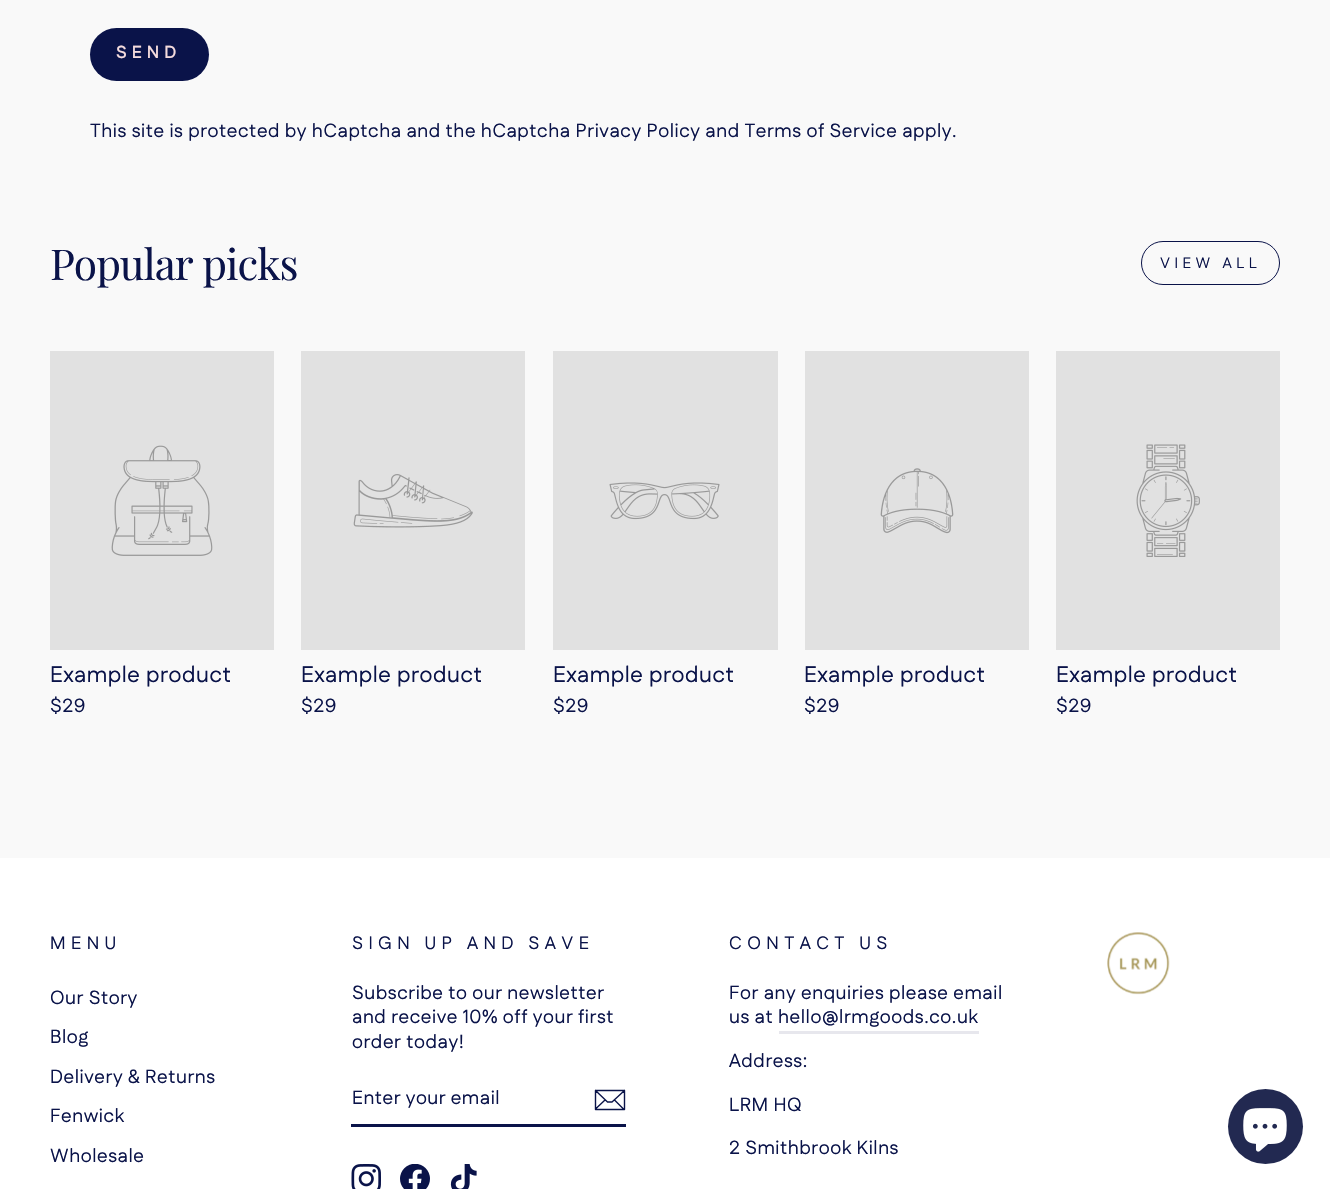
void draw(SkCanvas* canvas) {
    SkPaint paint;
    paint.setAntiAlias(true);
    auto spacedText = [&](const char* s, float x, float y, const SkFont& font, const SkPaint& ink, float letter, float word) {
        std::vector<SkGlyphID> glyphs(font.countText(s, strlen(s), SkTextEncoding::kUTF8));
        std::vector<float> xs(glyphs.size());
        font.textToGlyphs(s, strlen(s), SkTextEncoding::kUTF8, glyphs);
        font.getXPos(glyphs, xs, x);
        float extra = 0;
        for (size_t i = 0; i < glyphs.size(); i++) {
            xs[i] += extra;
            extra += letter + word * (glyphs[i] == font.unicharToGlyph(' '));
        }
        canvas->drawTextBlob(SkTextBlob::MakeFromPosHGlyphs(glyphs, xs, y, font), 0, 0, ink);
    };
    canvas->clear(0xFFF9F9F9);
    paint.setColor(0xFF0A1349);
    canvas->drawRoundRect(SkRect::MakeXYWH(90, 28, 119, 53), 26.5f, 26.5f, paint);
    SkFont font1(fontMgr->matchFamilyStyle("Fustat", SkFontStyle(600, SkFontStyle::kNormal_Width, SkFontStyle::kUpright_Slant)), 17.5f);
    font1.setSubpixel(true);
    paint.setColor(0xFFF5DCDD);
    spacedText("SEND", 116, 58, font1, paint, 5, 0);
    SkFont font2(fontMgr->matchFamilyStyle("Fustat", SkFontStyle::Normal()), 19.1f);
    font2.setSubpixel(true);
    paint.setColor(0xFF0A1349);
    spacedText("This site is protected by hCaptcha and the hCaptcha Privacy Policy and Terms of Service apply.", 90, 137, font2, paint, 0.55f, 0);
    SkFont font3(fontMgr->matchFamilyStyle("Playfair Display", SkFontStyle::Normal()), 42.5f);
    font3.setSubpixel(true);
    spacedText("Popular picks", 50, 280, font3, paint, -1, 0);
    paint.setStyle(SkPaint::kStroke_Style);
    paint.setStrokeWidth(1);
    canvas->drawRoundRect(SkRect::MakeXYWH(1141.5f, 241.5f, 138, 43), 21.5f, 21.5f, paint);
    SkFont font4(fontMgr->matchFamilyStyle("Fustat", SkFontStyle::Normal()), 15);
    font4.setSubpixel(true);
    paint.setStyle(SkPaint::kFill_Style);
    spacedText("VIEW ALL", 1160, 268, font4, paint, 4.5f, 0);
    paint.setColor(0xFFE1E1E1);
    canvas->drawRect(SkRect::MakeXYWH(50, 351, 224, 299), paint);
    canvas->drawImageRect(SkImages::DeferredFromEncodedData(SkData::MakeFromFileName("img1.png")), SkRect::MakeXYWH(111, 445, 102, 111), SkSamplingOptions());
    SkFont font5(fontMgr->matchFamilyStyle("Fustat", SkFontStyle::Normal()), 22.5f);
    font5.setSubpixel(true);
    paint.setColor(0xFF0A1349);
    spacedText("Example product", 50, 682, font5, paint, 0.55f, 0);
    spacedText("$29", 50, 712, font2, paint, 0.55f, 0);
    paint.setColor(0xFFE1E1E1);
    canvas->drawRect(SkRect::MakeXYWH(301, 351, 224, 299), paint);
    canvas->drawImageRect(SkImages::DeferredFromEncodedData(SkData::MakeFromFileName("img2.png")), SkRect::MakeXYWH(353, 474, 120, 54), SkSamplingOptions());
    paint.setColor(0xFF0A1349);
    spacedText("Example product", 301, 682, font5, paint, 0.55f, 0);
    spacedText("$29", 301, 712, font2, paint, 0.55f, 0);
    paint.setColor(0xFFE1E1E1);
    canvas->drawRect(SkRect::MakeXYWH(553, 351, 225, 299), paint);
    canvas->drawImageRect(SkImages::DeferredFromEncodedData(SkData::MakeFromFileName("img3.png")), SkRect::MakeXYWH(609, 482, 111, 38), SkSamplingOptions());
    paint.setColor(0xFF0A1349);
    spacedText("Example product", 553, 682, font5, paint, 0.55f, 0);
    spacedText("$29", 553, 712, font2, paint, 0.55f, 0);
    paint.setColor(0xFFE1E1E1);
    canvas->drawRect(SkRect::MakeXYWH(805, 351, 224, 299), paint);
    canvas->drawImageRect(SkImages::DeferredFromEncodedData(SkData::MakeFromFileName("img4.png")), SkRect::MakeXYWH(880, 468, 74, 66), SkSamplingOptions());
    paint.setColor(0xFF0A1349);
    spacedText("Example product", 804, 682, font5, paint, 0.55f, 0);
    spacedText("$29", 804, 712, font2, paint, 0.55f, 0);
    paint.setColor(0xFFE1E1E1);
    canvas->drawRect(SkRect::MakeXYWH(1056, 351, 224, 299), paint);
    canvas->drawImageRect(SkImages::DeferredFromEncodedData(SkData::MakeFromFileName("img5.png")), SkRect::MakeXYWH(1136, 444, 64, 113), SkSamplingOptions());
    paint.setColor(0xFF0A1349);
    spacedText("Example product", 1056, 682, font5, paint, 0.55f, 0);
    spacedText("$29", 1056, 712, font2, paint, 0.55f, 0);
    paint.setColor(0xFFFFFFFF);
    canvas->drawRect(SkRect::MakeXYWH(0, 858, 1330, 331), paint);
    SkFont font6(fontMgr->matchFamilyStyle("Fustat", SkFontStyle::Normal()), 18);
    font6.setSubpixel(true);
    paint.setColor(0xFF0A1349);
    spacedText("MENU", 50, 949, font6, paint, 5.4f, 0);
    spacedText("Our Story", 50, 1004, font2, paint, 0.55f, 0);
    spacedText("Blog", 50, 1043, font2, paint, 0.55f, 0);
    spacedText("Delivery & Returns", 50, 1083, font2, paint, 0.55f, 0);
    spacedText("Fenwick", 50, 1122, font2, paint, 0.55f, 0);
    spacedText("Wholesale", 50, 1162, font2, paint, 0.55f, 0);
    spacedText("SIGN UP AND SAVE", 352, 949, font6, paint, 5.4f, 0);
    spacedText("Subscribe to our newsletter", 352, 999, font2, paint, 0.55f, 0);
    spacedText("and receive 10% off your first", 352, 1023, font2, paint, 0.55f, 0);
    spacedText("order today!", 352, 1048, font2, paint, 0.55f, 0);
    canvas->drawRect(SkRect::MakeXYWH(351, 1124, 275, 3), paint);
    spacedText("Enter your email", 352, 1104, font2, paint, 0.5f, 0);
    paint.setStyle(SkPaint::kStroke_Style);
    paint.setStrokeWidth(1.4f);
    paint.setStrokeCap(SkPaint::kRound_Cap);
    paint.setStrokeJoin(SkPaint::kRound_Join);
    canvas->drawPath(SkPathBuilder().moveTo(624.5f, 1109.5f).lineTo(595.5f, 1109.5f).lineTo(595.5f, 1090.5f).lineTo(624.5f, 1090.5f).close().moveTo(595.5f, 1090.5f).lineTo(607.5f, 1102).lineTo(612, 1102).lineTo(624.5f, 1090.5f).moveTo(605, 1100).lineTo(595.5f, 1109).moveTo(624, 1109.5f).lineTo(614.5f, 1100).detach(), paint);
    canvas->drawImageRect(SkImages::DeferredFromEncodedData(SkData::MakeFromFileName("img6.png")), SkRect::MakeXYWH(351, 1164, 30, 25), SkSamplingOptions());
    canvas->drawImageRect(SkImages::DeferredFromEncodedData(SkData::MakeFromFileName("img7.png")), SkRect::MakeXYWH(400, 1164, 30, 25), SkSamplingOptions());
    canvas->drawImageRect(SkImages::DeferredFromEncodedData(SkData::MakeFromFileName("img8.png")), SkRect::MakeXYWH(450, 1164, 27, 25), SkSamplingOptions());
    paint.setStyle(SkPaint::kFill_Style);
    spacedText("CONTACT US", 729, 949, font6, paint, 5.4f, 0);
    spacedText("For any enquiries please email", 729, 999, font2, paint, 0.55f, 0);
    spacedText("us at hello@lrmgoods.co.uk", 729, 1023, font2, paint, 0.55f, 0);
    paint.setColor(0xFFE7E7ED);
    canvas->drawRect(SkRect::MakeXYWH(779, 1031, 200, 3), paint);
    paint.setColor(0xFF0A1349);
    spacedText("Address:", 729, 1067, font2, paint, 0.55f, 0);
    spacedText("LRM HQ", 729, 1111, font2, paint, 0.55f, 0);
    spacedText("2 Smithbrook Kilns", 729, 1154, font2, paint, 0.55f, 0);
    canvas->drawImageRect(SkImages::DeferredFromEncodedData(SkData::MakeFromFileName("img9.png")), SkRect::MakeXYWH(1107, 932, 63, 63), SkSamplingOptions());
    paint.setColor(0xFF222951);
    canvas->drawCircle(1265.5f, 1126.5f, 37.5f, paint);
    canvas->drawImageRect(SkImages::DeferredFromEncodedData(SkData::MakeFromFileName("img10.png")), SkRect::MakeXYWH(1243, 1108, 44, 44), SkSamplingOptions());
}
